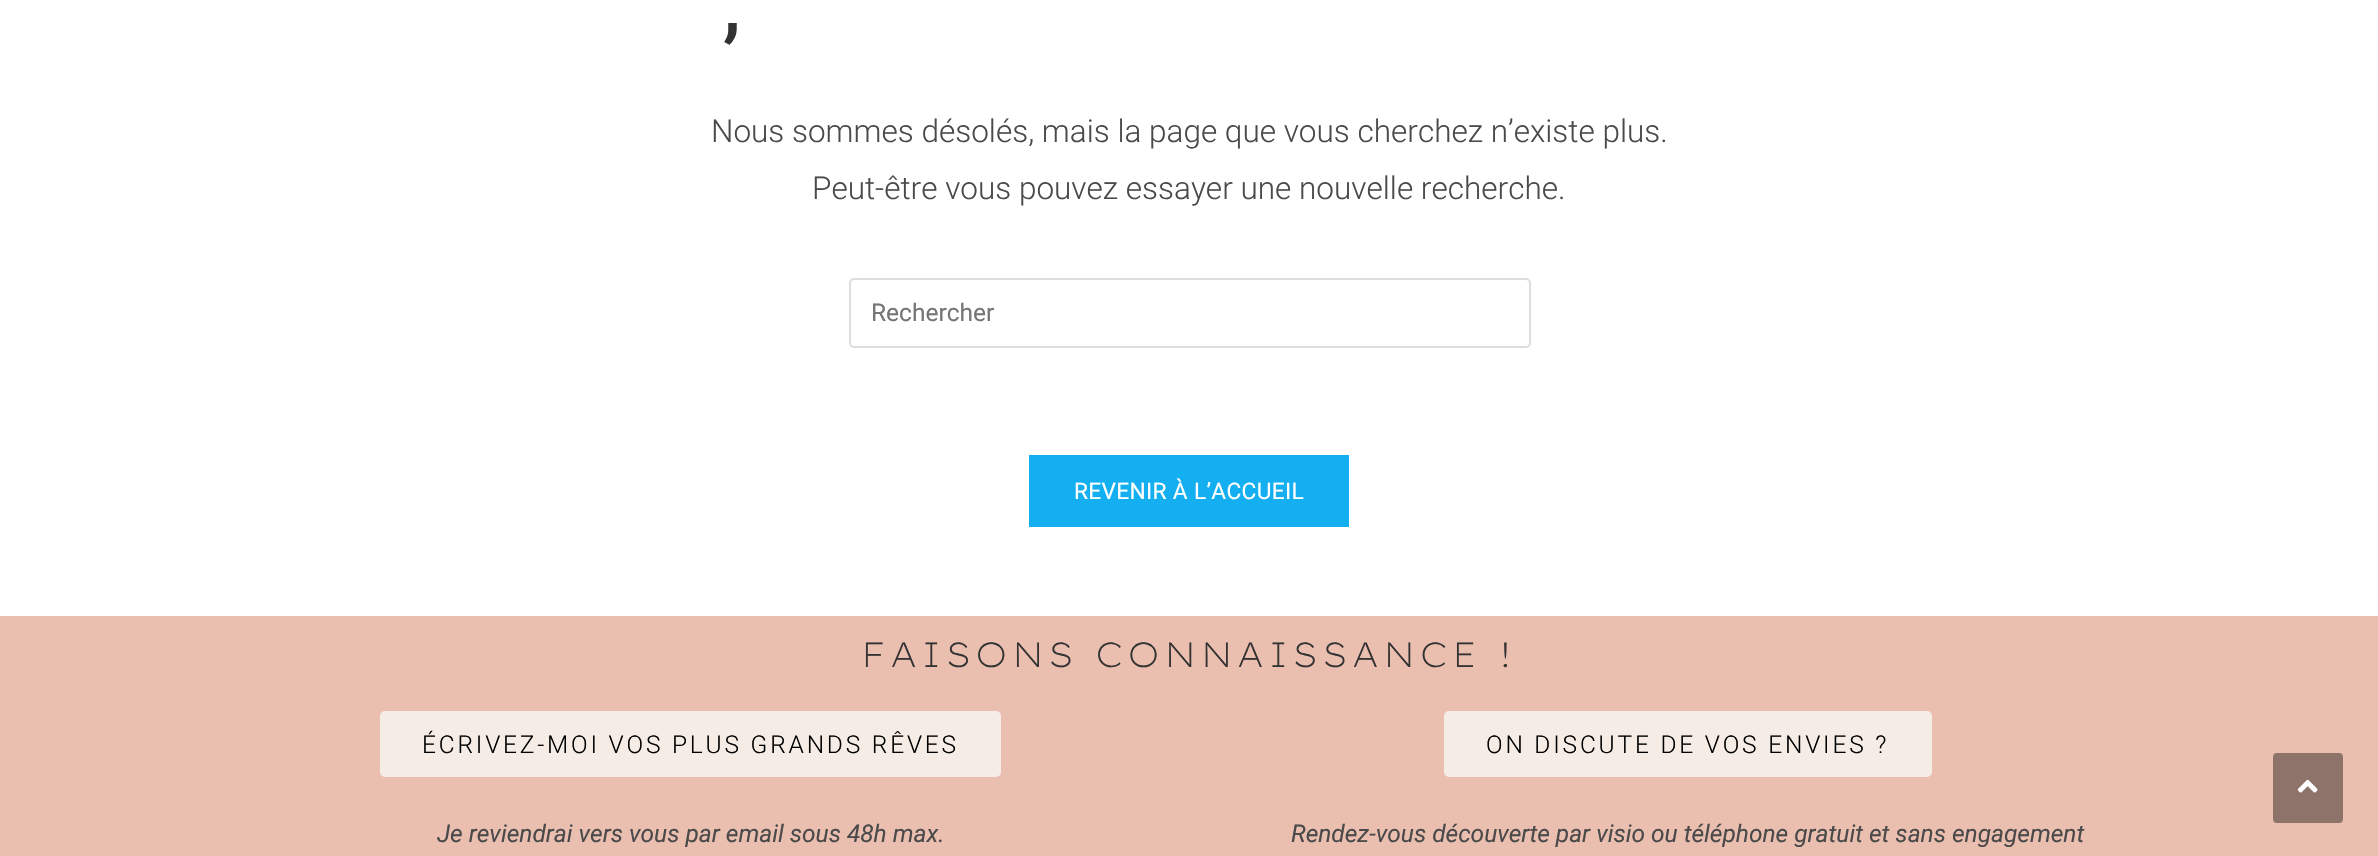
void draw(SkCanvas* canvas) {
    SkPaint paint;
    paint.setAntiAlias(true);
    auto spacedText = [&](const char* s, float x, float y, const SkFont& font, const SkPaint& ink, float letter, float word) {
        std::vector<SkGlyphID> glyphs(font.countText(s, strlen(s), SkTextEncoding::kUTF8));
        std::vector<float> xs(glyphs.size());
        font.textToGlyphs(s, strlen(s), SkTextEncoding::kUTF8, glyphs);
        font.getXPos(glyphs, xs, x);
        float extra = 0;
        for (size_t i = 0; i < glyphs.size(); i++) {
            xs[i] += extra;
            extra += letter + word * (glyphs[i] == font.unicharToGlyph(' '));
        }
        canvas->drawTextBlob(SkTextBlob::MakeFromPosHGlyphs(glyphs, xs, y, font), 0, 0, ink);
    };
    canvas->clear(0xFFFFFFFF);
    SkFont font1(fontMgr->matchFamilyStyle("Roboto", SkFontStyle(500, SkFontStyle::kNormal_Width, SkFontStyle::kUpright_Slant)), 80);
    font1.setSubpixel(true);
    paint.setColor(0xFF333333);
    spacedText(",", 723, 32, font1, paint, 2.8f, 0);
    SkFont font2(fontMgr->matchFamilyStyle("Roboto", SkFontStyle(300, SkFontStyle::kNormal_Width, SkFontStyle::kUpright_Slant)), 31.5f);
    font2.setSubpixel(true);
    paint.setColor(0xFF4A4A4A);
    canvas->drawString("Nous sommes désolés, mais la page que vous cherchez n’existe plus.", 711, 142, font2, paint);
    canvas->drawString("Peut-être vous pouvez essayer une nouvelle recherche.", 812, 199, font2, paint);
    paint.setStyle(SkPaint::kStroke_Style);
    paint.setStrokeWidth(2);
    paint.setColor(0xFFDDDDDD);
    canvas->drawRoundRect(SkRect::MakeXYWH(850, 279, 680, 68), 4, 4, paint);
    SkFont font3(fontMgr->matchFamilyStyle("Roboto", SkFontStyle::Normal()), 24.5f);
    font3.setSubpixel(true);
    paint.setStyle(SkPaint::kFill_Style);
    paint.setColor(0xFF757575);
    canvas->drawString("Rechercher", 871, 321, font3, paint);
    paint.setColor(0xFF13AFF0);
    canvas->drawRect(SkRect::MakeXYWH(1029, 455, 320, 72), paint);
    SkFont font4(fontMgr->matchFamilyStyle("Roboto", SkFontStyle::Normal()), 22.75f);
    font4.setSubpixel(true);
    paint.setColor(0xFFFFFFFF);
    spacedText("REVENIR À L’ACCUEIL", 1074, 499, font4, paint, 0.3f, 0);
    paint.setColor(0xFFEBBFB0);
    canvas->drawRect(SkRect::MakeXYWH(0, 616, 2378, 240), paint);
    SkFont font5(fontMgr->matchFamilyStyle("Lexend Exa", SkFontStyle(200, SkFontStyle::kNormal_Width, SkFontStyle::kUpright_Slant)), 35);
    font5.setSubpixel(true);
    paint.setColor(0xFF333333);
    spacedText("FAISONS CONNAISSANCE !", 861, 667, font5, paint, 4.55f, 0);
    paint.setColor(0xFFF5EDE5);
    canvas->drawRoundRect(SkRect::MakeXYWH(380, 711, 621, 66), 5, 5, paint);
    SkFont font6(fontMgr->matchFamilyStyle("Roboto", SkFontStyle(300, SkFontStyle::kNormal_Width, SkFontStyle::kUpright_Slant)), 24.5f);
    font6.setSubpixel(true);
    paint.setColor(0xFF000000);
    spacedText("ÉCRIVEZ-MOI VOS PLUS GRANDS RÊVES", 422, 753, font6, paint, 2.8f, 0);
    SkFont font7(fontMgr->matchFamilyStyle("Roboto", SkFontStyle::Italic()), 24.5f);
    font7.setSubpixel(true);
    paint.setColor(0xFF4A4A4A);
    canvas->drawString("Je reviendrai vers vous par email sous 48h max.", 437, 842, font7, paint);
    paint.setColor(0xFFF5EDE5);
    canvas->drawRoundRect(SkRect::MakeXYWH(1444, 711, 488, 66), 5, 5, paint);
    paint.setColor(0xFF000000);
    spacedText("ON DISCUTE DE VOS ENVIES ?", 1486, 753, font6, paint, 2.8f, 0);
    paint.setColor(0xFF4A4A4A);
    canvas->drawString("Rendez-vous découverte par visio ou téléphone gratuit et sans engagement", 1291, 842, font7, paint);
    paint.setColor(0xFF8D736A);
    canvas->drawRoundRect(SkRect::MakeXYWH(2273, 753, 70, 70), 4, 4, paint);
    canvas->drawImageRect(SkImages::DeferredFromEncodedData(SkData::MakeFromFileName("img1.png")), SkRect::MakeXYWH(2297, 779, 21, 14), SkSamplingOptions());
}
